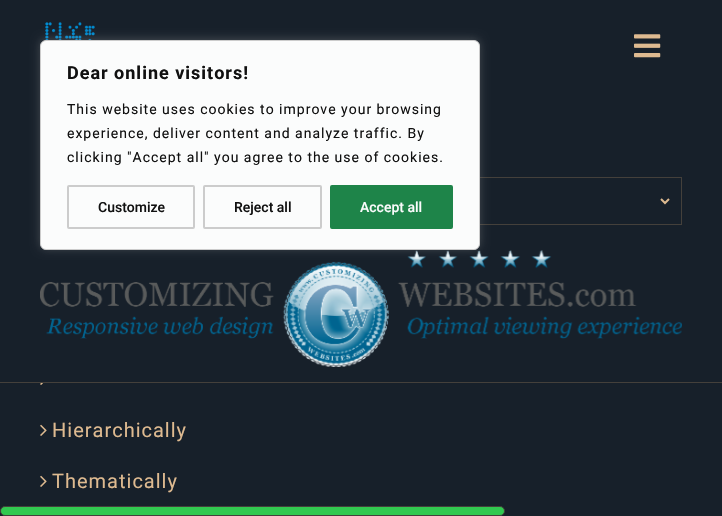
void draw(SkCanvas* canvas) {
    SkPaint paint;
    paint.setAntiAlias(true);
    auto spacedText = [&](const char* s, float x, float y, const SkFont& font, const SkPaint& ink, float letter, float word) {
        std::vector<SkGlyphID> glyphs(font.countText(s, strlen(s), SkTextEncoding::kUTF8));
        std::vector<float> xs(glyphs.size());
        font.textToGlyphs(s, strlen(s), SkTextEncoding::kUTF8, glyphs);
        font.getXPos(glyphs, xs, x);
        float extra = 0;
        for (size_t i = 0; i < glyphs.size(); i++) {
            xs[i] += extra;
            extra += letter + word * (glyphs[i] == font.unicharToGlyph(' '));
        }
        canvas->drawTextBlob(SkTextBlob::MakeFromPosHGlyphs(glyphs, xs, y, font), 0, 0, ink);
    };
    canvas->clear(0xFF17202A);
    canvas->drawImageRect(SkImages::DeferredFromEncodedData(SkData::MakeFromFileName("img1.png")), SkRect::MakeXYWH(45, 22, 50, 19), SkSamplingOptions());
    paint.setStyle(SkPaint::kStroke_Style);
    paint.setStrokeWidth(1);
    paint.setColor(0xFF44403B);
    canvas->drawRect(SkRect::MakeXYWH(250.5f, 177.5f, 431, 47), paint);
    canvas->drawImageRect(SkImages::DeferredFromEncodedData(SkData::MakeFromFileName("img3.png")), SkRect::MakeXYWH(40, 250, 642, 117), SkSamplingOptions());
    paint.setStyle(SkPaint::kFill_Style);
    paint.setColor(0x4DACABAB);
    paint.setMaskFilter(SkMaskFilter::MakeBlur(kNormal_SkBlurStyle, 5));
    canvas->drawRoundRect(SkRect::MakeXYWH(40, 39, 440, 210), 6, 6, paint);
    paint.setMaskFilter(nullptr);
    paint.setColor(0xFFFBFCFC);
    canvas->drawRoundRect(SkRect::MakeXYWH(40.5f, 40.5f, 439, 209), 5.5f, 5.5f, paint);
    paint.setStyle(SkPaint::kStroke_Style);
    paint.setColor(0xFFCCCCCC);
    canvas->drawRoundRect(SkRect::MakeXYWH(40.5f, 40.5f, 439, 209), 5.5f, 5.5f, paint);
    SkFont font1(fontMgr->matchFamilyStyle("Roboto", SkFontStyle::Bold()), 18);
    font1.setSubpixel(true);
    paint.setStyle(SkPaint::kFill_Style);
    paint.setColor(0xFF111111);
    spacedText("Dear online visitors!", 67, 79, font1, paint, 1, 0);
    SkFont font2(fontMgr->matchFamilyStyle("Roboto", SkFontStyle::Normal()), 14);
    font2.setSubpixel(true);
    spacedText("This website uses cookies to improve your browsing", 67, 114, font2, paint, 1, 0);
    spacedText("experience, deliver content and analyze traffic. By", 67, 138, font2, paint, 1, 0);
    spacedText("clicking \"Accept all\" you agree to the use of cookies.", 67, 162, font2, paint, 1, 0);
    paint.setStyle(SkPaint::kStroke_Style);
    paint.setStrokeWidth(2);
    paint.setColor(0xFFCCCCCC);
    canvas->drawRoundRect(SkRect::MakeXYWH(68, 186, 126, 42), 1, 1, paint);
    SkFont font3(fontMgr->matchFamilyStyle("Roboto", SkFontStyle(500, SkFontStyle::kNormal_Width, SkFontStyle::kUpright_Slant)), 14);
    font3.setSubpixel(true);
    paint.setStyle(SkPaint::kFill_Style);
    paint.setColor(0xFF111111);
    canvas->drawString("Customize", 98, 212, font3, paint);
    paint.setStyle(SkPaint::kStroke_Style);
    paint.setColor(0xFFCCCCCC);
    canvas->drawRoundRect(SkRect::MakeXYWH(204, 186, 117, 42), 1, 1, paint);
    paint.setStyle(SkPaint::kFill_Style);
    paint.setColor(0xFF111111);
    canvas->drawString("Reject all", 234, 212, font3, paint);
    paint.setColor(0xFF1E8449);
    canvas->drawRoundRect(SkRect::MakeXYWH(331, 186, 121, 42), 1, 1, paint);
    paint.setStyle(SkPaint::kStroke_Style);
    canvas->drawRoundRect(SkRect::MakeXYWH(331, 186, 121, 42), 1, 1, paint);
    paint.setStyle(SkPaint::kFill_Style);
    paint.setColor(0xFFFBFCFC);
    canvas->drawString("Accept all", 360, 212, font3, paint);
    paint.setColor(0xFF44403B);
    canvas->drawRect(SkRect::MakeXYWH(0, 382, 722, 1), paint);
    canvas->drawImageRect(SkImages::DeferredFromEncodedData(SkData::MakeFromFileName("img2.png")), SkRect::MakeXYWH(634, 34, 27, 24), SkSamplingOptions());
    paint.setStyle(SkPaint::kStroke_Style);
    paint.setColor(0xFFDEBA90);
    canvas->drawPath(SkPathBuilder().moveTo(661, 199).lineTo(665, 203).lineTo(669, 199).detach(), paint);
    canvas->drawImageRect(SkImages::DeferredFromEncodedData(SkData::MakeFromFileName("img4.png")), SkRect::MakeXYWH(40, 383, 3, 2), SkSamplingOptions());
    canvas->drawImageRect(SkImages::DeferredFromEncodedData(SkData::MakeFromFileName("img5.png")), SkRect::MakeXYWH(40, 424, 7, 12), SkSamplingOptions());
    SkFont font4(fontMgr->matchFamilyStyle("Roboto", SkFontStyle::Normal()), 20);
    font4.setSubpixel(true);
    paint.setStyle(SkPaint::kFill_Style);
    spacedText("Hierarchically", 52, 437, font4, paint, 1, 0);
    canvas->drawImageRect(SkImages::DeferredFromEncodedData(SkData::MakeFromFileName("img5.png")), SkRect::MakeXYWH(40, 475, 7, 12), SkSamplingOptions());
    spacedText("Thematically", 52, 488, font4, paint, 1, 0);
    paint.setColor(0xFF31C950);
    canvas->drawRoundRect(SkRect::MakeXYWH(0.5f, 506.5f, 504, 9), 4.5f, 4.5f, paint);
    paint.setStyle(SkPaint::kStroke_Style);
    paint.setStrokeWidth(1);
    paint.setColor(0xFF44403B);
    canvas->drawRoundRect(SkRect::MakeXYWH(0.5f, 506.5f, 504, 9), 4.5f, 4.5f, paint);
}
